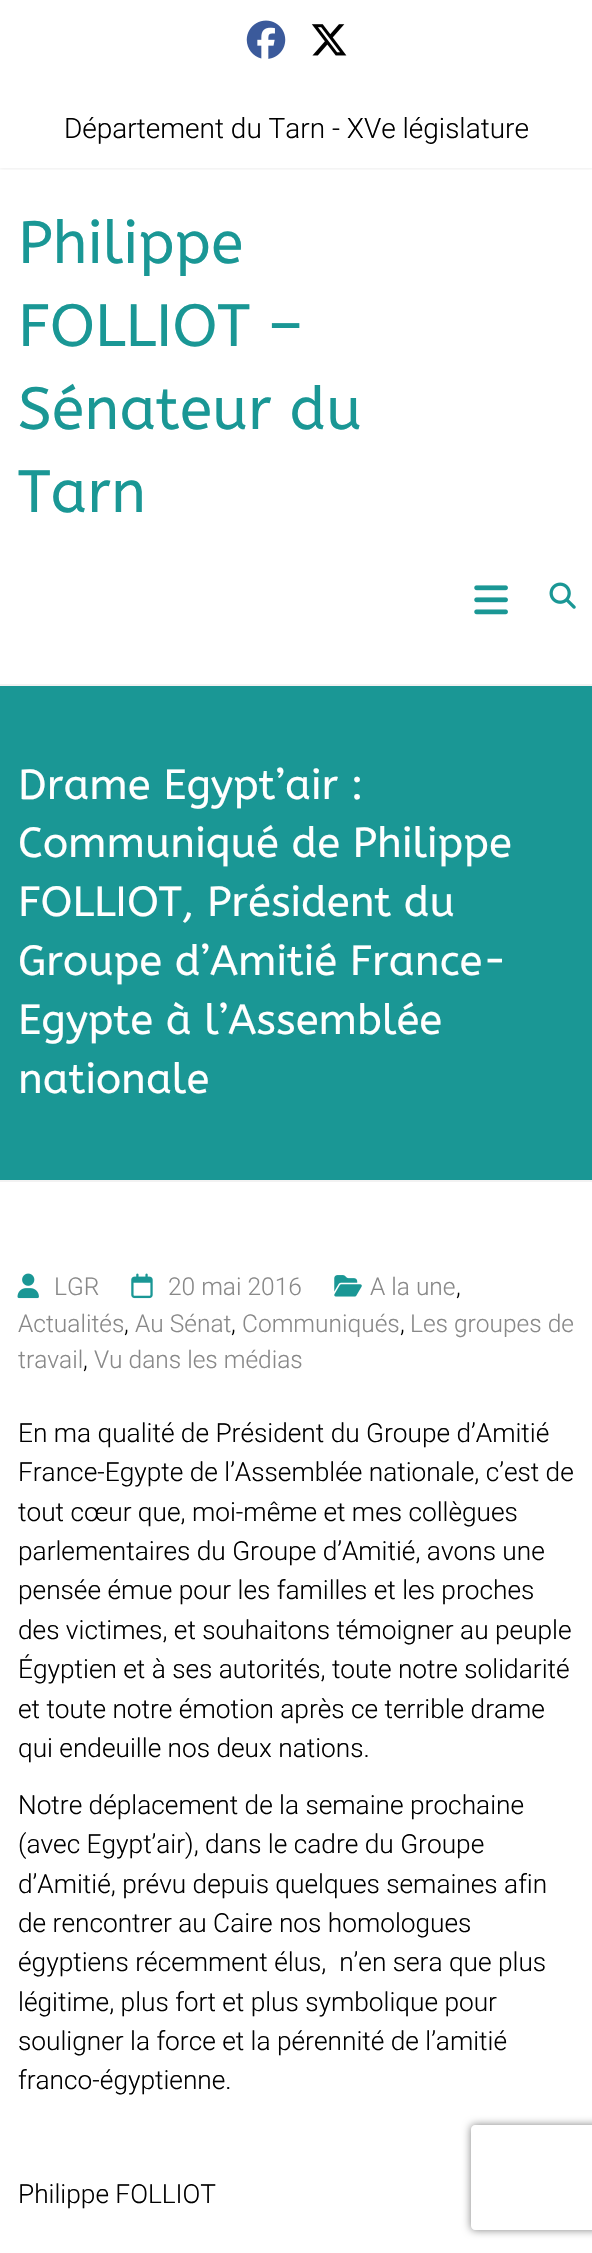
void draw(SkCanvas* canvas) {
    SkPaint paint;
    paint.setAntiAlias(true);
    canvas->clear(0xFFFFFFFF);
    paint.setColor(0xFFF2F2F2);
    canvas->drawRect(SkRect::MakeXYWH(0, 684, 592, 2), paint);
    canvas->save();
    canvas->clipRect(SkRect::MakeXYWH(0, 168, 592, 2));
    paint.setColor(0x1A000000);
    paint.setMaskFilter(SkMaskFilter::MakeBlur(kNormal_SkBlurStyle, 2));
    canvas->drawRect(SkRect::MakeXYWH(0, 0, 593, 168), paint);
    paint.setMaskFilter(nullptr);
    canvas->restore();
    canvas->drawImageRect(SkImages::DeferredFromEncodedData(SkData::MakeFromFileName("img1.png")), SkRect::MakeXYWH(246, 20, 40, 39), SkSamplingOptions());
    canvas->drawImageRect(SkImages::DeferredFromEncodedData(SkData::MakeFromFileName("img2.png")), SkRect::MakeXYWH(311, 24, 36, 32), SkSamplingOptions());
    SkFont font1(fontMgr->matchFamilyStyle("Roboto", SkFontStyle(300, SkFontStyle::kNormal_Width, SkFontStyle::kUpright_Slant)), 28);
    font1.setSubpixel(true);
    paint.setColor(0xFF000000);
    canvas->drawString("Département du Tarn - XVe législature", 64, 138, font1, paint);
    SkFont font2(fontMgr->matchFamilyStyle("ABeeZee", SkFontStyle::Normal()), 59.5f);
    font2.setSubpixel(true);
    paint.setColor(0xFF1A9795);
    canvas->drawString("Philippe", 18, 263, font2, paint);
    canvas->drawString("FOLLIOT –", 18, 346, font2, paint);
    canvas->drawString("Sénateur du", 18, 429, font2, paint);
    canvas->drawString("Tarn", 18, 512, font2, paint);
    canvas->drawImageRect(SkImages::DeferredFromEncodedData(SkData::MakeFromFileName("img3.png")), SkRect::MakeXYWH(474, 585, 34, 30), SkSamplingOptions());
    canvas->drawImageRect(SkImages::DeferredFromEncodedData(SkData::MakeFromFileName("img4.png")), SkRect::MakeXYWH(549, 582, 27, 27), SkSamplingOptions());
    canvas->drawRect(SkRect::MakeXYWH(0, 686, 592, 494), paint);
    paint.setColor(0xFFF2F2F2);
    canvas->drawRect(SkRect::MakeXYWH(0, 1180, 592, 2), paint);
    SkFont font3(fontMgr->matchFamilyStyle("ABeeZee", SkFontStyle::Normal()), 42);
    font3.setSubpixel(true);
    paint.setColor(0xFFFFFFFF);
    canvas->drawString("Drame Egypt’air :", 18, 799, font3, paint);
    canvas->drawString("Communiqué de Philippe", 18, 857, font3, paint);
    canvas->drawString("FOLLIOT, Président du", 18, 916, font3, paint);
    canvas->drawString("Groupe d’Amitié France-", 18, 975, font3, paint);
    canvas->drawString("Egypte à l’Assemblée", 18, 1034, font3, paint);
    canvas->drawString("nationale", 18, 1093, font3, paint);
    canvas->drawImageRect(SkImages::DeferredFromEncodedData(SkData::MakeFromFileName("img5.png")), SkRect::MakeXYWH(334, 1275, 28, 22), SkSamplingOptions());
    SkFont font4(fontMgr->matchFamilyStyle("Roboto", SkFontStyle(300, SkFontStyle::kNormal_Width, SkFontStyle::kUpright_Slant)), 24.5f);
    font4.setSubpixel(true);
    paint.setColor(0xFF888888);
    canvas->drawString("A la une", 370, 1295, font4, paint);
    paint.setColor(0xFF000000);
    canvas->drawString(",", 456, 1295, font4, paint);
    paint.setColor(0xFF888888);
    canvas->drawString("Actualités", 18, 1332, font4, paint);
    paint.setColor(0xFF000000);
    canvas->drawString(",", 124, 1332, font4, paint);
    paint.setColor(0xFF888888);
    canvas->drawString("Au Sénat", 135, 1332, font4, paint);
    paint.setColor(0xFF000000);
    canvas->drawString(",", 231, 1332, font4, paint);
    paint.setColor(0xFF888888);
    canvas->drawString("Communiqués", 242, 1332, font4, paint);
    paint.setColor(0xFF000000);
    canvas->drawString(",", 400, 1332, font4, paint);
    paint.setColor(0xFF888888);
    canvas->drawString("Les groupes de", 410, 1332, font4, paint);
    canvas->drawString("travail", 18, 1368, font4, paint);
    paint.setColor(0xFF000000);
    canvas->drawString(",", 83, 1368, font4, paint);
    paint.setColor(0xFF888888);
    canvas->drawString("Vu dans les médias", 94, 1368, font4, paint);
    canvas->drawImageRect(SkImages::DeferredFromEncodedData(SkData::MakeFromFileName("img6.png")), SkRect::MakeXYWH(17, 1273, 22, 26), SkSamplingOptions());
    canvas->drawString("LGR", 54, 1295, font4, paint);
    canvas->drawImageRect(SkImages::DeferredFromEncodedData(SkData::MakeFromFileName("img7.png")), SkRect::MakeXYWH(131, 1273, 22, 26), SkSamplingOptions());
    canvas->drawString("20 mai 2016", 168, 1295, font4, paint);
    SkFont font5(fontMgr->matchFamilyStyle("Roboto", SkFontStyle(300, SkFontStyle::kNormal_Width, SkFontStyle::kUpright_Slant)), 26.25f);
    font5.setSubpixel(true);
    paint.setColor(0xFF000000);
    canvas->drawString("En ma qualité de Président du Groupe d’Amitié", 18, 1442, font5, paint);
    canvas->drawString("France-Egypte de l’Assemblée nationale, c’est de", 18, 1481, font5, paint);
    canvas->drawString("tout cœur que, moi-même et mes collègues", 18, 1521, font5, paint);
    canvas->drawString("parlementaires du Groupe d’Amitié, avons une", 18, 1560, font5, paint);
    canvas->drawString("pensée émue pour les familles et les proches", 18, 1599, font5, paint);
    canvas->drawString("des victimes, et souhaitons témoigner au peuple", 18, 1639, font5, paint);
    canvas->drawString("Égyptien et à ses autorités, toute notre solidarité", 18, 1678, font5, paint);
    canvas->drawString("et toute notre émotion après ce terrible drame", 18, 1718, font5, paint);
    canvas->drawString("qui endeuille nos deux nations.", 18, 1757, font5, paint);
    canvas->drawString("Notre déplacement de la semaine prochaine", 18, 1814, font5, paint);
    canvas->drawString("(avec Egypt’air), dans le cadre du Groupe", 18, 1853, font5, paint);
    canvas->drawString("d’Amitié, prévu depuis quelques semaines afin", 18, 1893, font5, paint);
    canvas->drawString("de rencontrer au Caire nos homologues", 18, 1932, font5, paint);
    canvas->drawString("égyptiens récemment élus,  n’en sera que plus", 18, 1971, font5, paint);
    canvas->drawString("légitime, plus fort et plus symbolique pour", 18, 2011, font5, paint);
    canvas->drawString("souligner la force et la pérennité de l’amitié", 18, 2050, font5, paint);
    canvas->drawString("franco-égyptienne.", 18, 2089, font5, paint);
    canvas->drawString("Philippe FOLLIOT", 18, 2203, font5, paint);
    canvas->save();
    canvas->clipPath(SkPathBuilder(SkPathFillType::kEvenOdd).moveTo(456, 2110).lineTo(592, 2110).lineTo(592, 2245).lineTo(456, 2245).close().moveTo(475, 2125).lineTo(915, 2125).cubicTo(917, 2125, 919, 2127, 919, 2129).lineTo(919, 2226).cubicTo(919, 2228, 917, 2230, 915, 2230).lineTo(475, 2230).cubicTo(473, 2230, 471, 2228, 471, 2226).lineTo(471, 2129).cubicTo(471, 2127, 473, 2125, 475, 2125).close().detach(), true);
    paint.setColor(0xFF808080);
    paint.setMaskFilter(SkMaskFilter::MakeBlur(kNormal_SkBlurStyle, 4.5f));
    canvas->drawRoundRect(SkRect::MakeXYWH(471, 2125, 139, 105), 4, 4, paint);
    paint.setMaskFilter(nullptr);
    canvas->restore();
}
